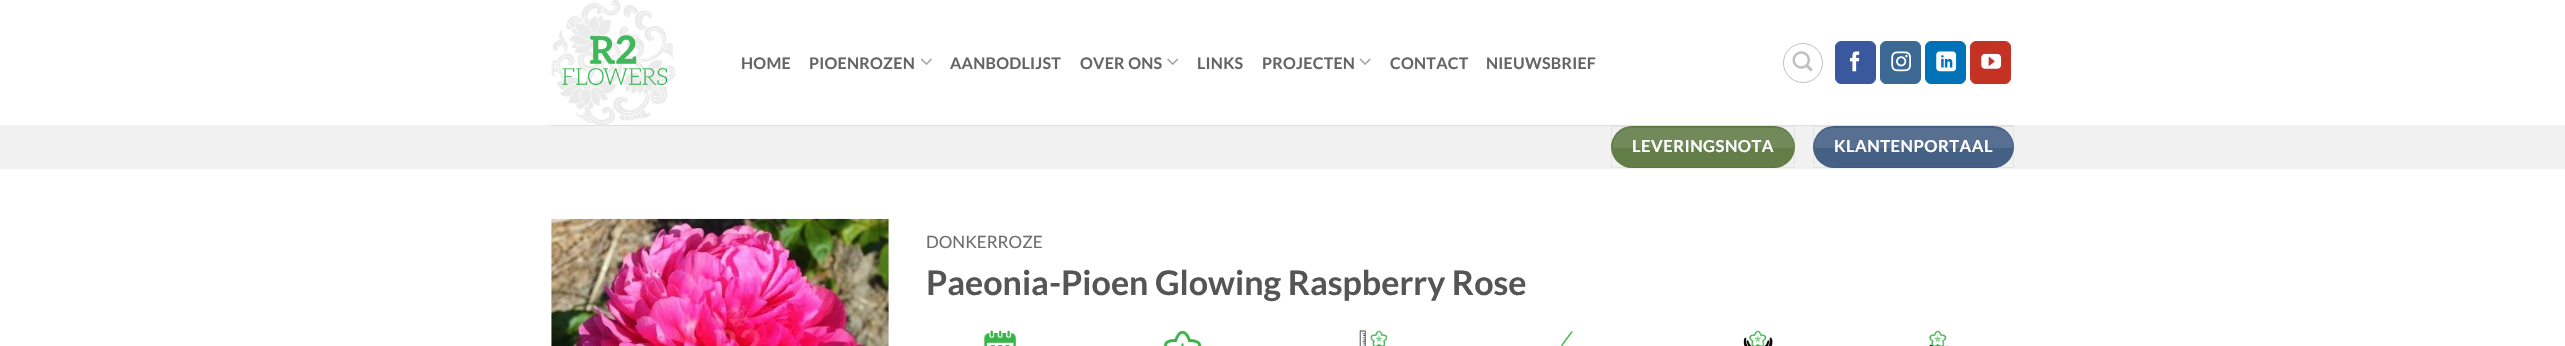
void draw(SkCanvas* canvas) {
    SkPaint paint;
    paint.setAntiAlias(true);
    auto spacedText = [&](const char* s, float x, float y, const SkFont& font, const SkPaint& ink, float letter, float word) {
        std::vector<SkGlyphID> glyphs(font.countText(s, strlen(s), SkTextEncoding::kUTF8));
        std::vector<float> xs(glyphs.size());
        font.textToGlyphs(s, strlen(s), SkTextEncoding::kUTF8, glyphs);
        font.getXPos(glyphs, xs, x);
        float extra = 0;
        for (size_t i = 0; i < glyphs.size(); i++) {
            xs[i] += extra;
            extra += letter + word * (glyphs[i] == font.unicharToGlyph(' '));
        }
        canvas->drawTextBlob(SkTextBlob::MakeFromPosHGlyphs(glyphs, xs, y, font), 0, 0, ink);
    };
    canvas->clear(0xFFFFFFFF);
    canvas->drawImageRect(SkImages::DeferredFromEncodedData(SkData::MakeFromFileName("img1.png")), SkRect::MakeXYWH(551, 0, 124, 125), SkSamplingOptions());
    SkFont font1(fontMgr->matchFamilyStyle("Lato", SkFontStyle::Bold()), 16);
    font1.setSubpixel(true);
    paint.setColor(0xFF656565);
    spacedText("HOME", 741, 69, font1, paint, 0.25f, 0);
    spacedText("PIOENROZEN", 809, 69, font1, paint, 0.25f, 0);
    canvas->drawImageRect(SkImages::DeferredFromEncodedData(SkData::MakeFromFileName("img2.png")), SkRect::MakeXYWH(920, 58, 12, 7), SkSamplingOptions());
    spacedText("AANBODLIJST", 950, 69, font1, paint, 0.25f, 0);
    spacedText("OVER ONS", 1080, 69, font1, paint, 0.25f, 0);
    canvas->drawImageRect(SkImages::DeferredFromEncodedData(SkData::MakeFromFileName("img3.png")), SkRect::MakeXYWH(1167, 58, 12, 7), SkSamplingOptions());
    spacedText("LINKS", 1197, 69, font1, paint, 0.25f, 0);
    spacedText("PROJECTEN", 1262, 69, font1, paint, 0.25f, 0);
    canvas->drawImageRect(SkImages::DeferredFromEncodedData(SkData::MakeFromFileName("img4.png")), SkRect::MakeXYWH(1359, 58, 12, 7), SkSamplingOptions());
    spacedText("CONTACT", 1390, 69, font1, paint, 0.25f, 0);
    spacedText("NIEUWSBRIEF", 1486, 69, font1, paint, 0.25f, 0);
    paint.setStyle(SkPaint::kStroke_Style);
    paint.setStrokeWidth(1);
    paint.setColor(0xFFC0C0C0);
    canvas->drawCircle(1803, 63, 19.5f, paint);
    canvas->drawImageRect(SkImages::DeferredFromEncodedData(SkData::MakeFromFileName("img5.png")), SkRect::MakeXYWH(1792, 51, 21, 21), SkSamplingOptions());
    paint.setStyle(SkPaint::kFill_Style);
    paint.setColor(0xFF3A589D);
    canvas->drawRoundRect(SkRect::MakeXYWH(1835.5f, 41.5f, 40, 42), 5.5f, 5.5f, paint);
    paint.setStyle(SkPaint::kStroke_Style);
    canvas->drawRoundRect(SkRect::MakeXYWH(1835.5f, 41.5f, 40, 42), 5.5f, 5.5f, paint);
    canvas->drawImageRect(SkImages::DeferredFromEncodedData(SkData::MakeFromFileName("img6.png")), SkRect::MakeXYWH(1849, 51, 11, 21), SkSamplingOptions());
    paint.setStyle(SkPaint::kFill_Style);
    paint.setColor(0xFF3B6994);
    canvas->drawRoundRect(SkRect::MakeXYWH(1880.5f, 41.5f, 40, 42), 5.5f, 5.5f, paint);
    paint.setStyle(SkPaint::kStroke_Style);
    canvas->drawRoundRect(SkRect::MakeXYWH(1880.5f, 41.5f, 40, 42), 5.5f, 5.5f, paint);
    canvas->drawImageRect(SkImages::DeferredFromEncodedData(SkData::MakeFromFileName("img7.png")), SkRect::MakeXYWH(1891, 51, 20, 21), SkSamplingOptions());
    paint.setStyle(SkPaint::kFill_Style);
    paint.setColor(0xFF0072B7);
    canvas->drawRoundRect(SkRect::MakeXYWH(1925.5f, 41.5f, 40, 42), 5.5f, 5.5f, paint);
    paint.setStyle(SkPaint::kStroke_Style);
    canvas->drawRoundRect(SkRect::MakeXYWH(1925.5f, 41.5f, 40, 42), 5.5f, 5.5f, paint);
    canvas->drawImageRect(SkImages::DeferredFromEncodedData(SkData::MakeFromFileName("img8.png")), SkRect::MakeXYWH(1936, 51, 21, 21), SkSamplingOptions());
    paint.setStyle(SkPaint::kFill_Style);
    paint.setColor(0xFFC33223);
    canvas->drawRoundRect(SkRect::MakeXYWH(1970.5f, 41.5f, 40, 42), 5.5f, 5.5f, paint);
    paint.setStyle(SkPaint::kStroke_Style);
    canvas->drawRoundRect(SkRect::MakeXYWH(1970.5f, 41.5f, 40, 42), 5.5f, 5.5f, paint);
    canvas->drawImageRect(SkImages::DeferredFromEncodedData(SkData::MakeFromFileName("img9.png")), SkRect::MakeXYWH(1981, 53, 21, 16), SkSamplingOptions());
    paint.setStyle(SkPaint::kFill_Style);
    paint.setColor(0xFFF1F1F1);
    canvas->drawRect(SkRect::MakeXYWH(0, 125, 2565, 44), paint);
    paint.setColor(0xFFE0E0E0);
    canvas->drawRect(SkRect::MakeXYWH(551, 125, 1463, 1), paint);
    paint.setColor(0xFF627D47);
    canvas->drawRoundRect(SkRect::MakeXYWH(1611, 126, 184, 42), 21, 21, paint);
    paint.setStyle(SkPaint::kStroke_Style);
    paint.setColor(0x0D000000);
    canvas->drawRect(SkRect::MakeXYWH(1611.5f, 126.5f, 183, 41), paint);
    paint.setStyle(SkPaint::kFill_Style);
    paint.setColor(0x1AFFFFFF);
    canvas->drawPath(SkPathBuilder().moveTo(1632, 128).lineTo(1775, 128).cubicTo(1785.5f, 128, 1794, 136.5f, 1794, 147).lineTo(1794, 148).lineTo(1613, 148).lineTo(1613, 147).cubicTo(1613, 136.5f, 1621.5f, 128, 1632, 128).close().detach(), paint);
    SkFont font2(fontMgr->matchFamilyStyle("Lato", SkFontStyle::Bold()), 16.5f);
    font2.setSubpixel(true);
    paint.setColor(0xFFFFFFFF);
    spacedText("LEVERINGSNOTA", 1632, 152, font2, paint, 0.5f, 0);
    paint.setColor(0xFF446084);
    canvas->drawRoundRect(SkRect::MakeXYWH(1813, 126, 201, 42), 21, 21, paint);
    paint.setStyle(SkPaint::kStroke_Style);
    paint.setColor(0x0D000000);
    canvas->drawRect(SkRect::MakeXYWH(1813.5f, 126.5f, 200, 41), paint);
    paint.setStyle(SkPaint::kFill_Style);
    paint.setColor(0x1AFFFFFF);
    canvas->drawPath(SkPathBuilder().moveTo(1833, 128).lineTo(1994, 128).cubicTo(2004.5f, 128, 2013, 136.5f, 2013, 147).lineTo(2013, 148).lineTo(1814, 148).lineTo(1814, 147).cubicTo(1814, 136.5f, 1822.5f, 128, 1833, 128).close().detach(), paint);
    paint.setColor(0xFFFFFFFF);
    spacedText("KLANTENPORTAAL", 1834, 152, font2, paint, 0.5f, 0);
    canvas->drawImageRect(SkImages::DeferredFromEncodedData(SkData::MakeFromFileName("img10.png")), SkRect::MakeXYWH(551, 218, 338, 128), SkSamplingOptions());
    SkFont font3(fontMgr->matchFamilyStyle("Lato", SkFontStyle::Normal()), 17);
    font3.setSubpixel(true);
    paint.setColor(0xFF6E6E6E);
    canvas->drawString("DONKERROZE", 926, 248, font3, paint);
    SkFont font4(fontMgr->matchFamilyStyle("Lato", SkFontStyle::Bold()), 34);
    font4.setSubpixel(true);
    paint.setColor(0xFF555555);
    canvas->drawString("Paeonia-Pioen Glowing Raspberry Rose", 926, 295, font4, paint);
    canvas->drawImageRect(SkImages::DeferredFromEncodedData(SkData::MakeFromFileName("img11.png")), SkRect::MakeXYWH(983, 330, 33, 16), SkSamplingOptions());
    canvas->drawImageRect(SkImages::DeferredFromEncodedData(SkData::MakeFromFileName("img12.png")), SkRect::MakeXYWH(1163, 330, 39, 16), SkSamplingOptions());
    canvas->drawImageRect(SkImages::DeferredFromEncodedData(SkData::MakeFromFileName("img13.png")), SkRect::MakeXYWH(1359, 330, 29, 16), SkSamplingOptions());
    canvas->drawImageRect(SkImages::DeferredFromEncodedData(SkData::MakeFromFileName("img14.png")), SkRect::MakeXYWH(1560, 330, 13, 16), SkSamplingOptions());
    canvas->drawImageRect(SkImages::DeferredFromEncodedData(SkData::MakeFromFileName("img15.png")), SkRect::MakeXYWH(1743, 330, 30, 16), SkSamplingOptions());
    canvas->drawImageRect(SkImages::DeferredFromEncodedData(SkData::MakeFromFileName("img16.png")), SkRect::MakeXYWH(1929, 330, 20, 16), SkSamplingOptions());
}
